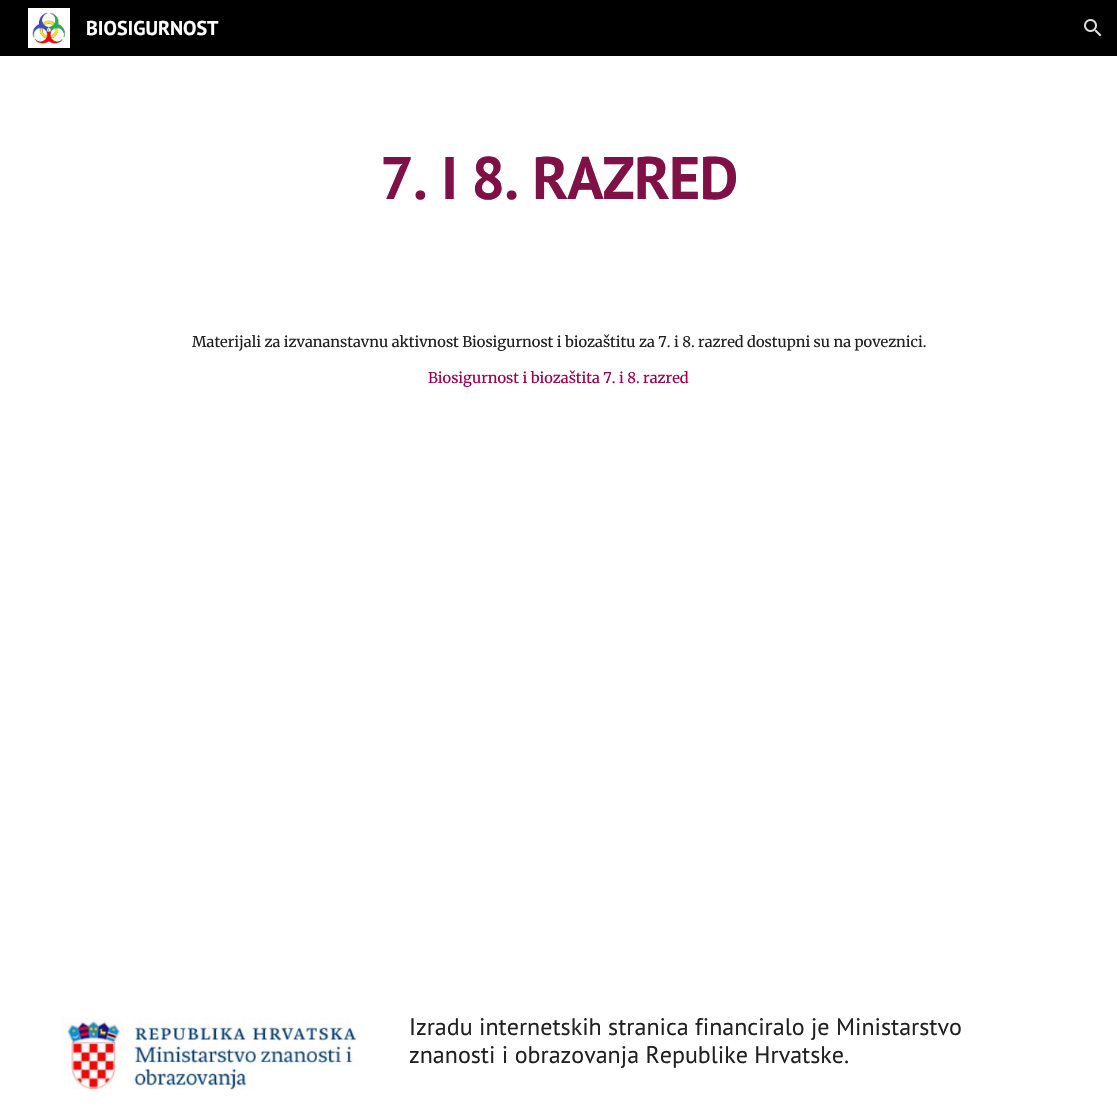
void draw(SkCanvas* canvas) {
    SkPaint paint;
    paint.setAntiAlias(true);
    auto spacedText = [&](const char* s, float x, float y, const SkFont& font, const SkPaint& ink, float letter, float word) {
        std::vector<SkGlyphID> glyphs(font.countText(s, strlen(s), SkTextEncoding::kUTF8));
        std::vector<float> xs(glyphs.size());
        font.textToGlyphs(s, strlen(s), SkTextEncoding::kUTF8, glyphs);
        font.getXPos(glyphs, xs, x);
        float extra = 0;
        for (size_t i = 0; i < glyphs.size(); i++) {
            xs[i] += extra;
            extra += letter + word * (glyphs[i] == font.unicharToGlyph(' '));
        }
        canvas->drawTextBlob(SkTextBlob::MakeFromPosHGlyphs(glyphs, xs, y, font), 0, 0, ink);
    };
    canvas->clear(0xFFFFFFFF);
    paint.setColor(0xFF000000);
    canvas->drawRect(SkRect::MakeXYWH(0, 0, 1117, 56), paint);
    canvas->drawImageRect(SkImages::DeferredFromEncodedData(SkData::MakeFromFileName("img1.png")), SkRect::MakeXYWH(28, 8, 42, 40), SkSamplingOptions());
    SkFont font1(fontMgr->matchFamilyStyle("PT Sans", SkFontStyle::Bold()), 20);
    font1.setSubpixel(true);
    paint.setColor(0xFFFFFFFF);
    canvas->drawString("BIOSIGURNOST", 86, 35, font1, paint);
    canvas->drawImageRect(SkImages::DeferredFromEncodedData(SkData::MakeFromFileName("img2.png")), SkRect::MakeXYWH(1084, 19, 18, 18), SkSamplingOptions());
    SkFont font2(fontMgr->matchFamilyStyle("PT Sans", SkFontStyle::Bold()), 60);
    font2.setSubpixel(true);
    paint.setColor(0xFF7F1146);
    spacedText("7. I 8. RAZRED", 380, 199, font2, paint, -1, 0);
    SkFont font3(fontMgr->matchFamilyStyle("Merriweather", SkFontStyle::Normal()), 14.67f);
    font3.setSubpixel(true);
    paint.setColor(0xFF212121);
    canvas->drawString("Materijali za izvananstavnu aktivnost Biosigurnost i biozaštitu za 7. i 8. razred dostupni su na poveznici.", 192, 347, font3, paint);
    paint.setColor(0xFFA1004E);
    canvas->drawString("Biosigurnost i biozaštita 7. i 8. razred", 428, 383, font3, paint);
    canvas->drawImageRect(SkImages::DeferredFromEncodedData(SkData::MakeFromFileName("img3.png")), SkRect::MakeXYWH(61, 1017, 302, 73), SkSamplingOptions());
    SkFont font4(fontMgr->matchFamilyStyle("PT Sans", SkFontStyle::Normal()), 24);
    font4.setSubpixel(true);
    paint.setColor(0xFF212121);
    canvas->drawString("Izradu internetskih stranica financiralo je Ministarstvo", 409, 1035, font4, paint);
    canvas->drawString("znanosti i obrazovanja Republike Hrvatske.", 409, 1063, font4, paint);
}
